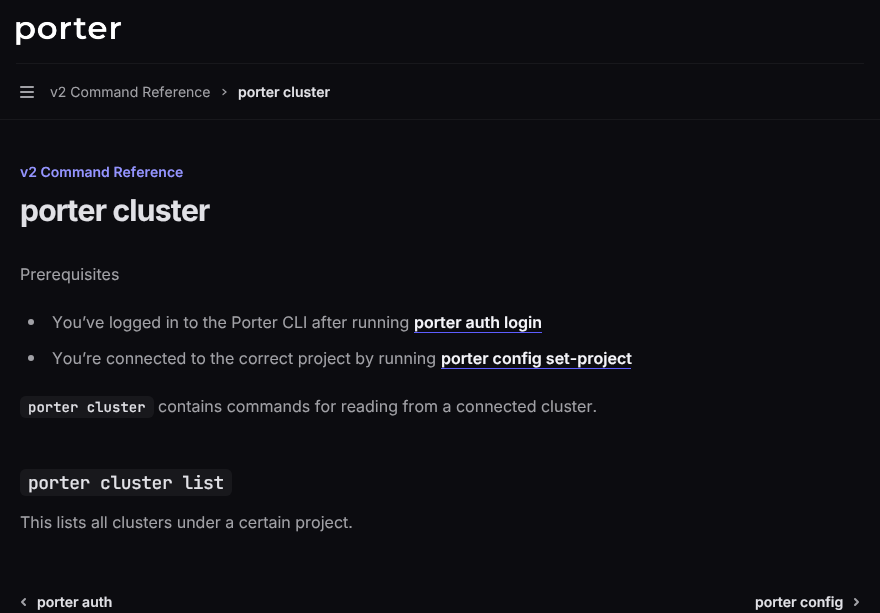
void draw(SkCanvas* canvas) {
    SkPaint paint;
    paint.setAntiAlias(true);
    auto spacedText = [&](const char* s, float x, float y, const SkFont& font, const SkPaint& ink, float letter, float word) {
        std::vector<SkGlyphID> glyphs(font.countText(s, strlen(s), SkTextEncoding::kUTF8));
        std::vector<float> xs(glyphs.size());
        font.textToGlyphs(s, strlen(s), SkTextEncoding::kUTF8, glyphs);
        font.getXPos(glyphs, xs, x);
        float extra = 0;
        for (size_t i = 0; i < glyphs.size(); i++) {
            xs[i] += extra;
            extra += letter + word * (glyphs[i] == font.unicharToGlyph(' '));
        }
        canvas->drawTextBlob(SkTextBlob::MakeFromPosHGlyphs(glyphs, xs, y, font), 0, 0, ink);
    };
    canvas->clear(0xFF0C0C10);
    paint.setColor(0xFF18181C);
    canvas->drawRect(SkRect::MakeXYWH(16, 63, 848, 1), paint);
    canvas->drawImageRect(SkImages::DeferredFromEncodedData(SkData::MakeFromFileName("img1.png")), SkRect::MakeXYWH(16, 18, 106, 27), SkSamplingOptions());
    canvas->drawImageRect(SkImages::DeferredFromEncodedData(SkData::MakeFromFileName("img2.png")), SkRect::MakeXYWH(20, 86, 14, 12), SkSamplingOptions());
    SkFont font1(fontMgr->matchFamilyStyle("Inter", SkFontStyle::Normal()), 14);
    font1.setSubpixel(true);
    paint.setColor(0xFFA1A1A6);
    canvas->drawString("v2 Command Reference", 50, 97, font1, paint);
    paint.setStyle(SkPaint::kStroke_Style);
    paint.setStrokeWidth(1.2f);
    paint.setStrokeCap(SkPaint::kRound_Cap);
    canvas->drawPath(SkPathBuilder().moveTo(223, 89.5f).lineTo(226, 92).lineTo(223, 94.5f).detach(), paint);
    SkFont font2(fontMgr->matchFamilyStyle("Inter", SkFontStyle(600, SkFontStyle::kNormal_Width, SkFontStyle::kUpright_Slant)), 14);
    font2.setSubpixel(true);
    paint.setStyle(SkPaint::kFill_Style);
    paint.setColor(0xFFE1E1E6);
    canvas->drawString("porter cluster", 238, 97, font2, paint);
    paint.setColor(0xFF18181C);
    canvas->drawRect(SkRect::MakeXYWH(0, 119, 880, 1), paint);
    paint.setColor(0xFF9494FF);
    canvas->drawString("v2 Command Reference", 20, 177, font2, paint);
    SkFont font3(fontMgr->matchFamilyStyle("Inter", SkFontStyle::Bold()), 30);
    font3.setSubpixel(true);
    paint.setColor(0xFFE1E1E6);
    spacedText("porter cluster", 20, 221, font3, paint, -0.75f, 0);
    SkFont font4(fontMgr->matchFamilyStyle("Inter", SkFontStyle::Normal()), 16);
    font4.setSubpixel(true);
    paint.setColor(0xFFA1A1A6);
    canvas->drawString("Prerequisites", 20, 280, font4, paint);
    canvas->drawCircle(31, 322, 3, paint);
    canvas->drawString("You’ve logged in to the Porter CLI after running", 52, 328, font4, paint);
    SkFont font5(fontMgr->matchFamilyStyle("Inter", SkFontStyle(600, SkFontStyle::kNormal_Width, SkFontStyle::kUpright_Slant)), 16);
    font5.setSubpixel(true);
    paint.setColor(0xFFF5F5FA);
    canvas->drawString("porter auth login", 414, 328, font5, paint);
    paint.setColor(0xFF5D5DFF);
    canvas->drawRect(SkRect::MakeXYWH(414, 332, 128, 1), paint);
    paint.setColor(0xFFA1A1A6);
    canvas->drawCircle(31, 358, 3, paint);
    canvas->drawString("You’re connected to the correct project by running", 52, 364, font4, paint);
    paint.setColor(0xFFF5F5FA);
    canvas->drawString("porter config set-project", 441, 364, font5, paint);
    paint.setColor(0xFF5D5DFF);
    canvas->drawRect(SkRect::MakeXYWH(441, 368, 190, 1), paint);
    paint.setColor(0xFF18181C);
    canvas->drawRoundRect(SkRect::MakeXYWH(20, 396, 134, 22), 6, 6, paint);
    SkFont font6(fontMgr->matchFamilyStyle("JetBrains Mono", SkFontStyle(500, SkFontStyle::kNormal_Width, SkFontStyle::kUpright_Slant)), 14);
    font6.setSubpixel(true);
    paint.setColor(0xFFE1E1E6);
    canvas->drawString("porter cluster", 28, 412, font6, paint);
    paint.setColor(0xFFA1A1A6);
    canvas->drawString("contains commands for reading from a connected cluster.", 158, 412, font4, paint);
    paint.setColor(0xFF18181C);
    canvas->drawRoundRect(SkRect::MakeXYWH(20, 469, 212, 27), 6, 6, paint);
    SkFont font7(fontMgr->matchFamilyStyle("JetBrains Mono", SkFontStyle(500, SkFontStyle::kNormal_Width, SkFontStyle::kUpright_Slant)), 18);
    font7.setSubpixel(true);
    paint.setColor(0xFFE1E1E6);
    spacedText("porter cluster list", 28, 489, font7, paint, -0.5f, 0);
    paint.setColor(0xFFA1A1A6);
    canvas->drawString("This lists all clusters under a certain project.", 20, 528, font4, paint);
    paint.setStyle(SkPaint::kStroke_Style);
    paint.setStrokeWidth(2);
    paint.setStrokeJoin(SkPaint::kRound_Join);
    canvas->drawPath(SkPathBuilder().moveTo(25, 599).lineTo(22, 602).lineTo(25, 605).detach(), paint);
    paint.setStyle(SkPaint::kFill_Style);
    paint.setColor(0xFFE1E1E6);
    canvas->drawString("porter auth", 37, 607, font2, paint);
    canvas->drawString("porter config", 755, 607, font2, paint);
    paint.setStyle(SkPaint::kStroke_Style);
    paint.setColor(0xFFA1A1A6);
    canvas->drawPath(SkPathBuilder().moveTo(855, 605).lineTo(858, 602).lineTo(855, 599).detach(), paint);
}
